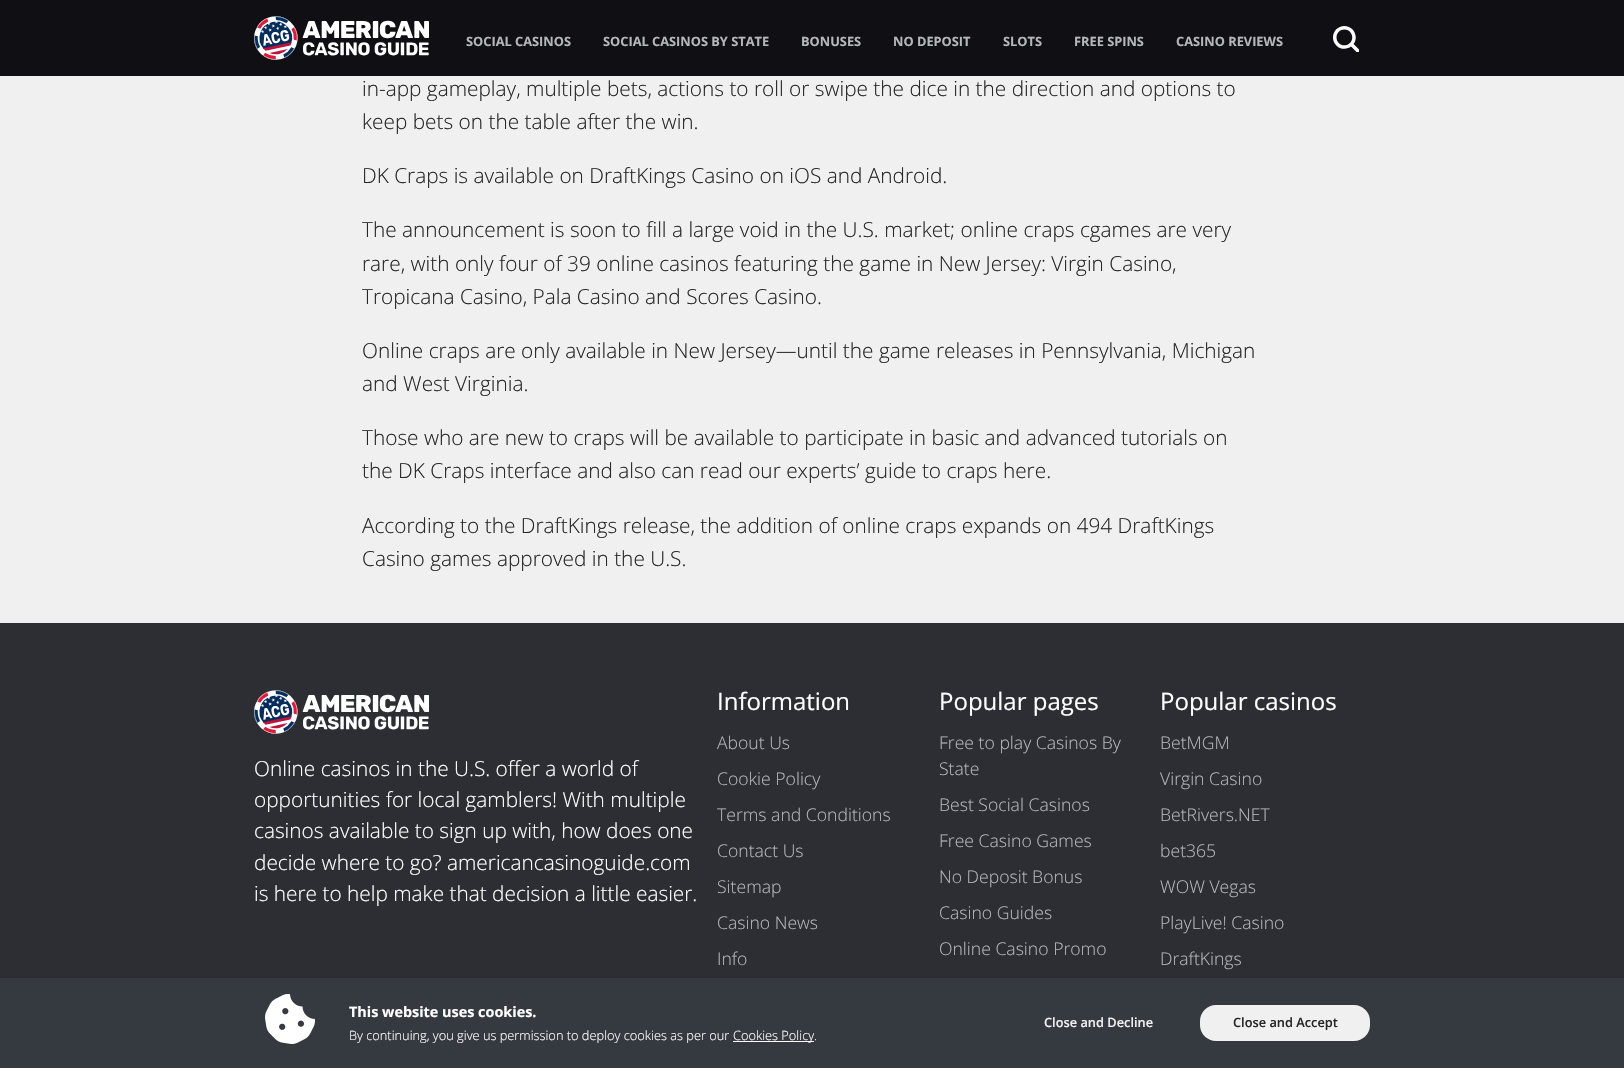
void draw(SkCanvas* canvas) {
    SkPaint paint;
    paint.setAntiAlias(true);
    canvas->clear(0xFFF0F0F0);
    paint.setColor(0xFF101014);
    canvas->drawRect(SkRect::MakeXYWH(0, 0, 1624, 76), paint);
    canvas->drawImageRect(SkImages::DeferredFromEncodedData(SkData::MakeFromFileName("img1.png")), SkRect::MakeXYWH(254, 16, 175, 44), SkSamplingOptions());
    SkFont font1(fontMgr->matchFamilyStyle("Open Sans", SkFontStyle::Bold()), 12.8f);
    font1.setSubpixel(true);
    paint.setColor(0xFFB6B7BA);
    canvas->drawString("SOCIAL CASINOS", 466, 46, font1, paint);
    canvas->drawString("SOCIAL CASINOS BY STATE", 603, 46, font1, paint);
    canvas->drawString("BONUSES", 801, 46, font1, paint);
    canvas->drawString("NO DEPOSIT", 893, 46, font1, paint);
    canvas->drawString("SLOTS", 1003, 46, font1, paint);
    canvas->drawString("FREE SPINS", 1074, 46, font1, paint);
    canvas->drawString("CASINO REVIEWS", 1176, 46, font1, paint);
    canvas->drawImageRect(SkImages::DeferredFromEncodedData(SkData::MakeFromFileName("img2.png")), SkRect::MakeXYWH(1333, 26, 26, 26), SkSamplingOptions());
    SkFont font2(fontMgr->matchFamilyStyle("Open Sans", SkFontStyle(300, SkFontStyle::kNormal_Width, SkFontStyle::kUpright_Slant)), 20.8f);
    font2.setSubpixel(true);
    paint.setColor(0xFF262626);
    canvas->drawString("in-app gameplay, multiple bets, actions to roll or swipe the dice in the direction and options to", 362, 96, font2, paint);
    canvas->drawString("keep bets on the table after the win.", 362, 129, font2, paint);
    canvas->drawString("DK Craps is available on DraftKings Casino on iOS and Android.", 362, 183, font2, paint);
    canvas->drawString("The announcement is soon to fill a large void in the U.S. market; online craps cgames are very", 362, 237, font2, paint);
    canvas->drawString("rare, with only four of 39 online casinos featuring the game in New Jersey: Virgin Casino,", 362, 271, font2, paint);
    canvas->drawString("Tropicana Casino, Pala Casino and Scores Casino.", 362, 304, font2, paint);
    canvas->drawString("Online craps are only available in New Jersey—until the game releases in Pennsylvania, Michigan", 362, 358, font2, paint);
    canvas->drawString("and West Virginia.", 362, 391, font2, paint);
    canvas->drawString("Those who are new to craps will be available to participate in basic and advanced tutorials on", 362, 445, font2, paint);
    canvas->drawString("the DK Craps interface and also can read our experts’ guide to craps here.", 362, 478, font2, paint);
    canvas->drawString("According to the DraftKings release, the addition of online craps expands on 494 DraftKings", 362, 533, font2, paint);
    canvas->drawString("Casino games approved in the U.S.", 362, 566, font2, paint);
    paint.setColor(0xFF2C2E33);
    canvas->drawRect(SkRect::MakeXYWH(0, 623, 1624, 355), paint);
    canvas->drawImageRect(SkImages::DeferredFromEncodedData(SkData::MakeFromFileName("img3.png")), SkRect::MakeXYWH(254, 690, 175, 44), SkSamplingOptions());
    paint.setColor(0xFFFFFFFF);
    canvas->drawString("Online casinos in the U.S. offer a world of", 254, 776, font2, paint);
    canvas->drawString("opportunities for local gamblers! With multiple", 254, 807, font2, paint);
    canvas->drawString("casinos available to sign up with, how does one", 254, 838, font2, paint);
    canvas->drawString("decide where to go? americancasinoguide.com", 254, 870, font2, paint);
    canvas->drawString("is here to help make that decision a little easier.", 254, 901, font2, paint);
    SkFont font3(fontMgr->matchFamilyStyle("Open Sans", SkFontStyle::Normal()), 24);
    font3.setSubpixel(true);
    canvas->drawString("Information", 717, 710, font3, paint);
    SkFont font4(fontMgr->matchFamilyStyle("Open Sans", SkFontStyle(300, SkFontStyle::kNormal_Width, SkFontStyle::kUpright_Slant)), 17.6f);
    font4.setSubpixel(true);
    paint.setColor(0xFFB6B7BA);
    canvas->drawString("About Us", 717, 749, font4, paint);
    canvas->drawString("Cookie Policy", 717, 785, font4, paint);
    canvas->drawString("Terms and Conditions", 717, 821, font4, paint);
    canvas->drawString("Contact Us", 717, 857, font4, paint);
    canvas->drawString("Sitemap", 717, 893, font4, paint);
    canvas->drawString("Casino News", 717, 929, font4, paint);
    canvas->drawString("Info", 717, 965, font4, paint);
    paint.setColor(0xFFFFFFFF);
    canvas->drawString("Popular pages", 939, 710, font3, paint);
    paint.setColor(0xFFB6B7BA);
    canvas->drawString("Free to play Casinos By", 939, 749, font4, paint);
    canvas->drawString("State", 939, 775, font4, paint);
    canvas->drawString("Best Social Casinos", 939, 811, font4, paint);
    canvas->drawString("Free Casino Games", 939, 847, font4, paint);
    canvas->drawString("No Deposit Bonus", 939, 883, font4, paint);
    canvas->drawString("Casino Guides", 939, 919, font4, paint);
    canvas->drawString("Online Casino Promo", 939, 955, font4, paint);
    paint.setColor(0xFFFFFFFF);
    canvas->drawString("Popular casinos", 1160, 710, font3, paint);
    paint.setColor(0xFFB6B7BA);
    canvas->drawString("BetMGM", 1160, 749, font4, paint);
    canvas->drawString("Virgin Casino", 1160, 785, font4, paint);
    canvas->drawString("BetRivers.NET", 1160, 821, font4, paint);
    canvas->drawString("bet365", 1160, 857, font4, paint);
    canvas->drawString("WOW Vegas", 1160, 893, font4, paint);
    canvas->drawString("PlayLive! Casino", 1160, 929, font4, paint);
    canvas->drawString("DraftKings", 1160, 965, font4, paint);
    paint.setColor(0xFF343A40);
    canvas->drawRect(SkRect::MakeXYWH(0, 978, 1624, 90), paint);
    canvas->drawImageRect(SkImages::DeferredFromEncodedData(SkData::MakeFromFileName("img4.png")), SkRect::MakeXYWH(265, 994, 50, 50), SkSamplingOptions());
    SkFont font5(fontMgr->matchFamilyStyle("Open Sans", SkFontStyle::Bold()), 14.4f);
    font5.setSubpixel(true);
    paint.setColor(0xFFFFFFFF);
    canvas->drawString("This website uses cookies.", 349, 1017, font5, paint);
    SkFont font6(fontMgr->matchFamilyStyle("Open Sans", SkFontStyle(300, SkFontStyle::kNormal_Width, SkFontStyle::kUpright_Slant)), 12.8f);
    font6.setSubpixel(true);
    canvas->drawString("By continuing, you give us permission to deploy cookies as per our", 349, 1040, font6, paint);
    canvas->drawRect(SkRect::MakeXYWH(733, 1041, 81, 1), paint);
    canvas->drawString("Cookies Policy.", 733, 1040, font6, paint);
    SkFont font7(fontMgr->matchFamilyStyle("Open Sans", SkFontStyle(600, SkFontStyle::kNormal_Width, SkFontStyle::kUpright_Slant)), 12.8f);
    font7.setSubpixel(true);
    paint.setColor(0xFFF0F0F0);
    canvas->drawString("Close and Decline", 1044, 1027, font7, paint);
    canvas->drawRoundRect(SkRect::MakeXYWH(1200, 1005, 170, 36), 16, 16, paint);
    paint.setColor(0xFF262626);
    canvas->drawString("Close and Accept", 1233, 1027, font7, paint);
}
